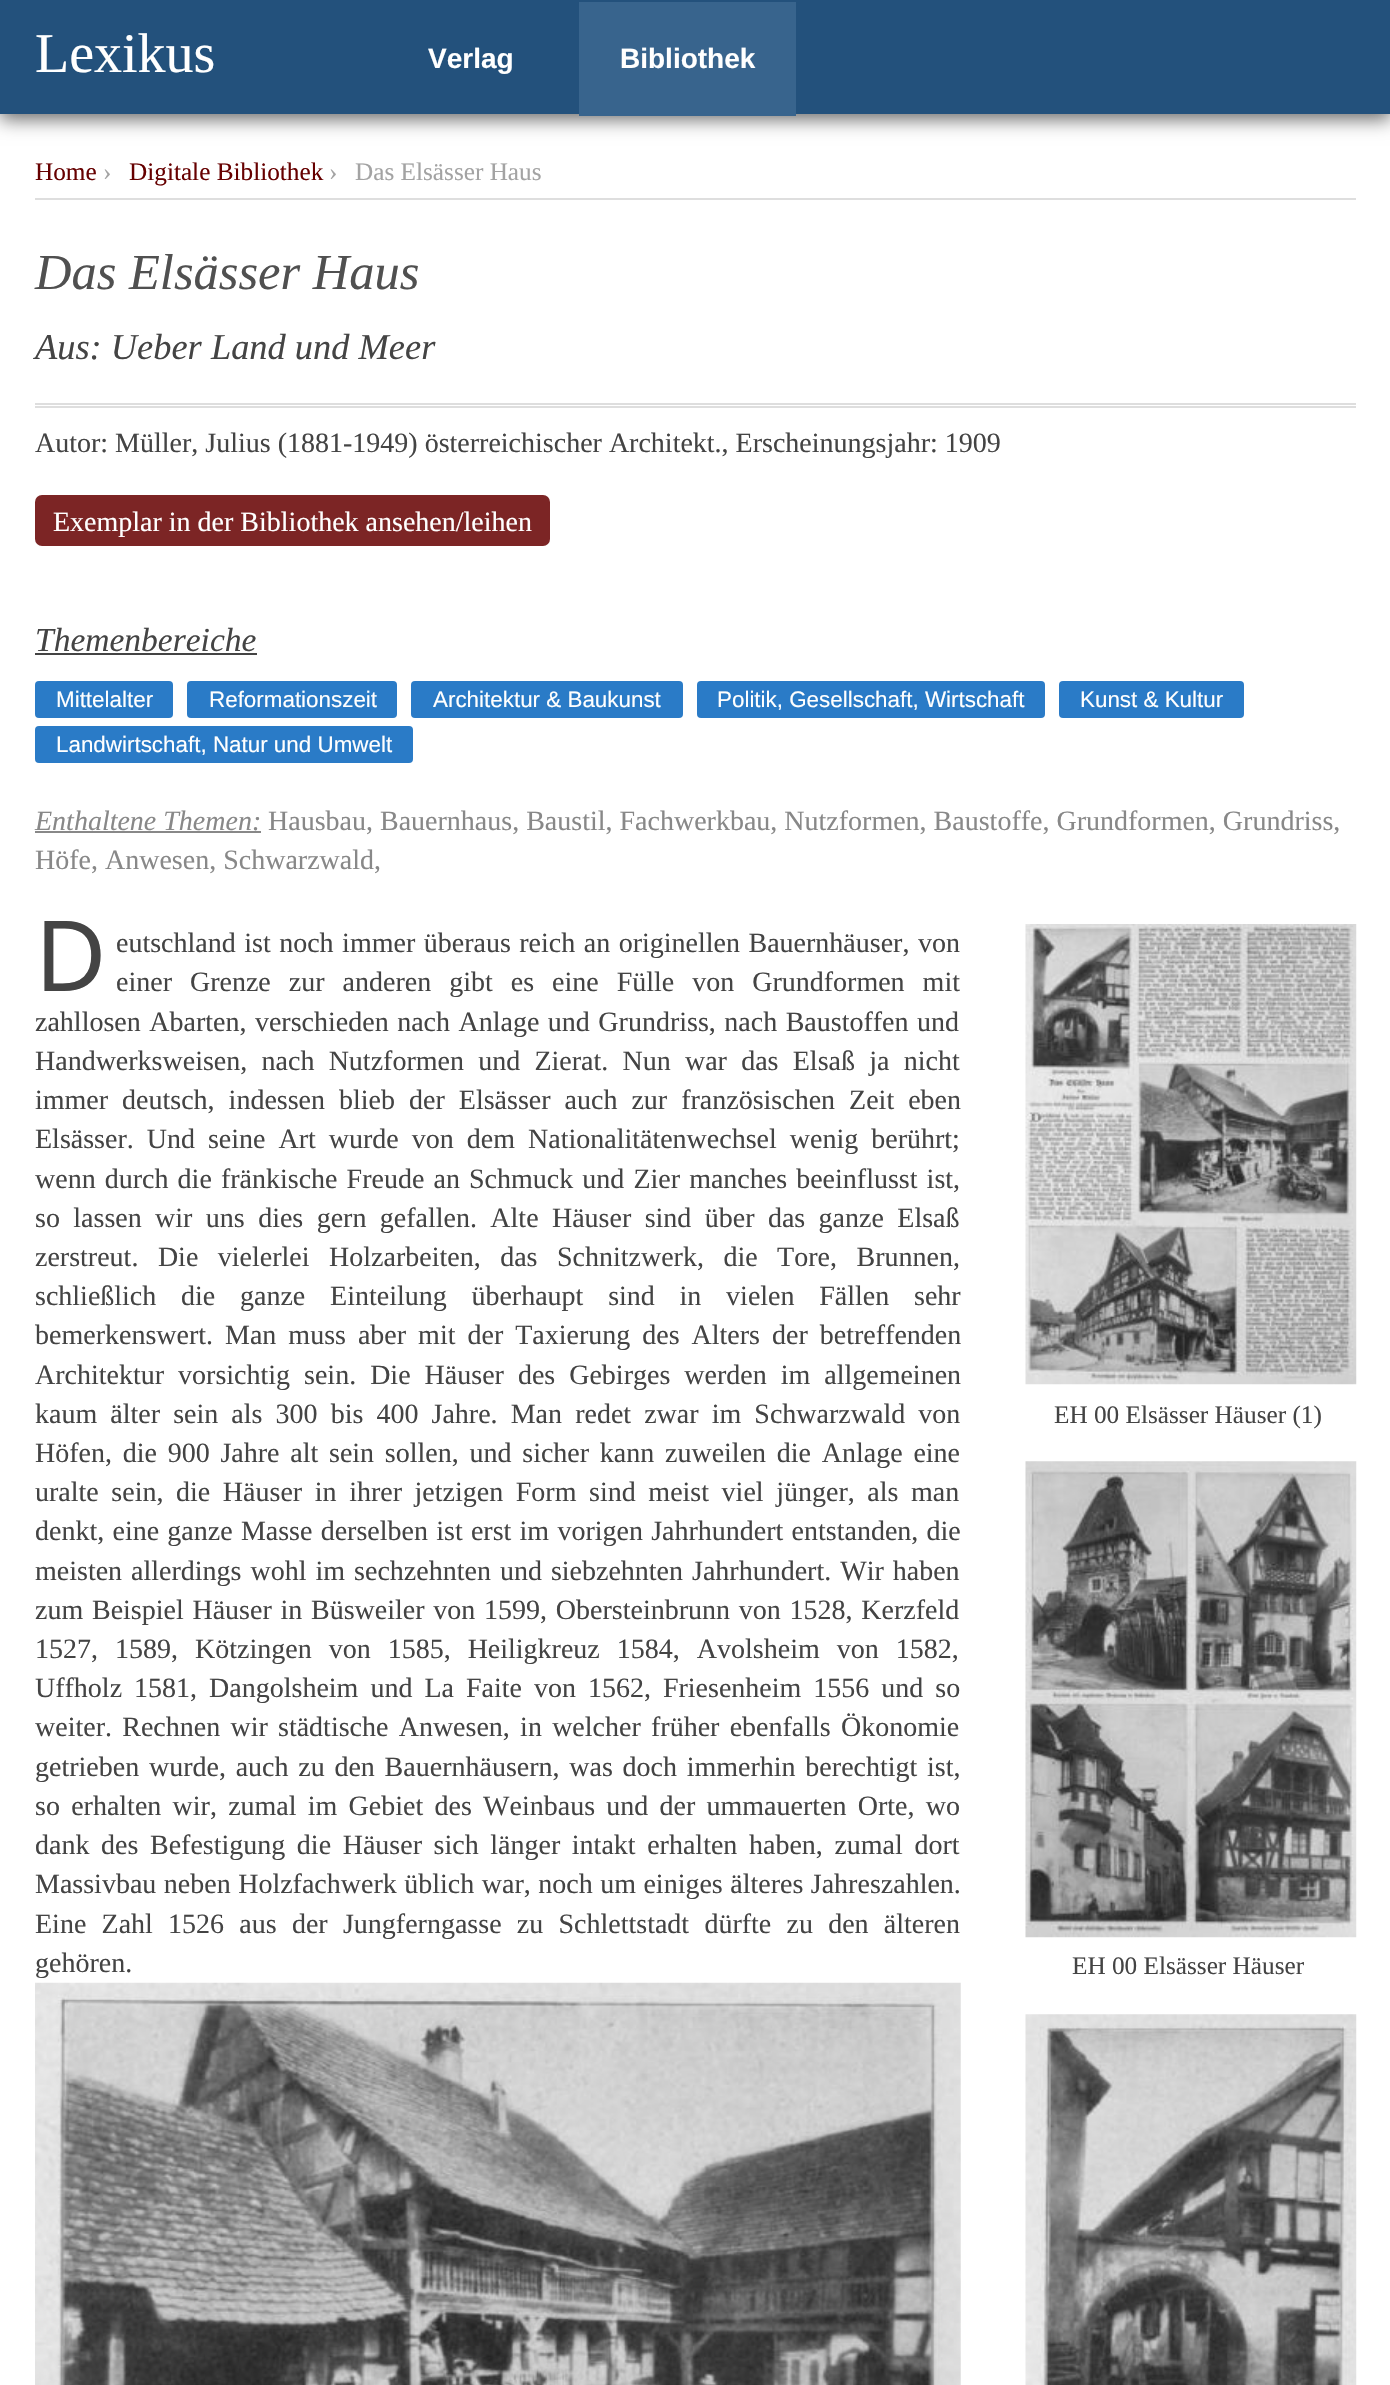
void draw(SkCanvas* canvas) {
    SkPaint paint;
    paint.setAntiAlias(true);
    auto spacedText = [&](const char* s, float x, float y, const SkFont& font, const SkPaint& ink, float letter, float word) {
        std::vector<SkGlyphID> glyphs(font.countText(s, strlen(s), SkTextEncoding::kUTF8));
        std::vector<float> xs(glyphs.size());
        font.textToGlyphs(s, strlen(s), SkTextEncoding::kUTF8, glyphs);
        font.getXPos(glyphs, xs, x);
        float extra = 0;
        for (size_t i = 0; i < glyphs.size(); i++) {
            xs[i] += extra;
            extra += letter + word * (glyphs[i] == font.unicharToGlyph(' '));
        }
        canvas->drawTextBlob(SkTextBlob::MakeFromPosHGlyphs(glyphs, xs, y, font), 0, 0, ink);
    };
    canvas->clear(0xFFFFFFFF);
    paint.setColor(0xFF666666);
    paint.setMaskFilter(SkMaskFilter::MakeBlur(kNormal_SkBlurStyle, 9));
    canvas->drawRect(SkRect::MakeXYWH(0, 5, 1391, 114), paint);
    paint.setMaskFilter(nullptr);
    paint.setColor(0xFF23517C);
    canvas->drawRect(SkRect::MakeXYWH(0, 0, 1390, 114), paint);
    SkFont font1(fontMgr->matchFamilyStyle("Tinos", SkFontStyle::Normal()), 56);
    font1.setSubpixel(true);
    paint.setColor(0xFFFFFFFF);
    canvas->drawString("Lexikus", 35, 72, font1, paint);
    SkFont font2(fontMgr->matchFamilyStyle("Liberation Sans", SkFontStyle::Bold()), 28);
    font2.setSubpixel(true);
    canvas->drawString("Verlag", 428, 68, font2, paint);
    paint.setColor(0xFF38648D);
    canvas->drawRect(SkRect::MakeXYWH(579, 2, 217, 114), paint);
    paint.setColor(0xFFFFFFFF);
    canvas->drawString("Bibliothek", 620, 68, font2, paint);
    paint.setColor(0xFFDEDEDE);
    canvas->drawRect(SkRect::MakeXYWH(35, 198, 1321, 2), paint);
    SkFont font3(fontMgr->matchFamilyStyle("Tinos", SkFontStyle::Normal()), 25.25f);
    font3.setSubpixel(true);
    paint.setColor(0xFF660000);
    canvas->drawString("Home", 35, 180, font3, paint);
    paint.setColor(0xFFA3A3A3);
    canvas->drawString("›", 103, 180, font3, paint);
    paint.setColor(0xFF660000);
    canvas->drawString("Digitale Bibliothek", 129, 180, font3, paint);
    paint.setColor(0xFFA3A3A3);
    canvas->drawString("›", 329, 180, font3, paint);
    canvas->drawString("Das Elsässer Haus", 355, 180, font3, paint);
    SkFont font4(fontMgr->matchFamilyStyle("Tinos", SkFontStyle::Italic()), 50.5f);
    font4.setSubpixel(true);
    paint.setColor(0xFF505050);
    canvas->drawString("Das Elsässer Haus", 35, 289, font4, paint);
    SkFont font5(fontMgr->matchFamilyStyle("Tinos", SkFontStyle::Italic()), 36.4f);
    font5.setSubpixel(true);
    paint.setColor(0xFF444444);
    canvas->drawString("Aus: Ueber Land und Meer", 35, 359, font5, paint);
    paint.setColor(0xFFDEDEDE);
    canvas->drawRect(SkRect::MakeXYWH(35, 403, 1321, 2), paint);
    canvas->drawRect(SkRect::MakeXYWH(35, 406, 1321, 2), paint);
    SkFont font6(fontMgr->matchFamilyStyle("Tinos", SkFontStyle::Normal()), 28);
    font6.setSubpixel(true);
    paint.setColor(0xFF444444);
    canvas->drawString("Autor: Müller, Julius (1881-1949) österreichischer Architekt., Erscheinungsjahr: 1909", 35, 452, font6, paint);
    paint.setColor(0xFF7C2525);
    canvas->drawRoundRect(SkRect::MakeXYWH(35, 495, 515, 51), 7, 7, paint);
    paint.setColor(0xFFFFFFFF);
    canvas->drawString("Exemplar in der Bibliothek ansehen/leihen", 53, 531, font6, paint);
    SkFont font7(fontMgr->matchFamilyStyle("Tinos", SkFontStyle::Italic()), 33.5f);
    font7.setSubpixel(true);
    paint.setColor(0xFF444444);
    canvas->drawString("Themenbereiche", 35, 651, font7, paint);
    canvas->drawRect(SkRect::MakeXYWH(35, 653, 222, 2), paint);
    paint.setColor(0xFF2A7BC7);
    canvas->drawRoundRect(SkRect::MakeXYWH(35, 681, 138, 37), 4, 4, paint);
    SkFont font8(fontMgr->matchFamilyStyle("Liberation Sans", SkFontStyle::Normal()), 22.4f);
    font8.setSubpixel(true);
    paint.setColor(0xFFFFFFFF);
    canvas->drawString("Mittelalter", 56, 707, font8, paint);
    paint.setColor(0xFF2A7BC7);
    canvas->drawRoundRect(SkRect::MakeXYWH(187, 681, 210, 37), 4, 4, paint);
    paint.setColor(0xFFFFFFFF);
    canvas->drawString("Reformationszeit", 209, 707, font8, paint);
    paint.setColor(0xFF2A7BC7);
    canvas->drawRoundRect(SkRect::MakeXYWH(411, 681, 272, 37), 4, 4, paint);
    paint.setColor(0xFFFFFFFF);
    canvas->drawString("Architektur & Baukunst", 433, 707, font8, paint);
    paint.setColor(0xFF2A7BC7);
    canvas->drawRoundRect(SkRect::MakeXYWH(697, 681, 348, 37), 4, 4, paint);
    paint.setColor(0xFFFFFFFF);
    canvas->drawString("Politik, Gesellschaft, Wirtschaft", 717, 707, font8, paint);
    paint.setColor(0xFF2A7BC7);
    canvas->drawRoundRect(SkRect::MakeXYWH(1059, 681, 185, 37), 4, 4, paint);
    paint.setColor(0xFFFFFFFF);
    canvas->drawString("Kunst & Kultur", 1080, 707, font8, paint);
    paint.setColor(0xFF2A7BC7);
    canvas->drawRoundRect(SkRect::MakeXYWH(35, 726, 378, 37), 4, 4, paint);
    paint.setColor(0xFFFFFFFF);
    canvas->drawString("Landwirtschaft, Natur und Umwelt", 56, 752, font8, paint);
    SkFont font9(fontMgr->matchFamilyStyle("Tinos", SkFontStyle::Italic()), 28);
    font9.setSubpixel(true);
    paint.setColor(0xFF888888);
    canvas->drawString("Enthaltene Themen:", 35, 830, font9, paint);
    canvas->drawRect(SkRect::MakeXYWH(35, 831, 226, 2), paint);
    canvas->drawString("Hausbau, Bauernhaus, Baustil, Fachwerkbau, Nutzformen, Baustoffe, Grundformen, Grundriss,", 268, 830, font6, paint);
    canvas->drawString("Höfe, Anwesen, Schwarzwald,", 35, 869, font6, paint);
    SkFont font10(fontMgr->matchFamilyStyle("Noto Sans", SkFontStyle::Normal()), 98);
    font10.setSubpixel(true);
    paint.setColor(0xFF444444);
    canvas->drawString("D", 35, 991, font10, paint);
    spacedText("eutschland ist noch immer überaus reich an originellen Bauernhäuser, von", 116, 952, font6, paint, 0, 1.5f);
    spacedText("einer Grenze zur anderen gibt es eine Fülle von Grundformen mit", 116, 991, font6, paint, 0, 11);
    spacedText("zahllosen Abarten, verschieden nach Anlage und Grundriss, nach Baustoffen und", 35, 1031, font6, paint, 0, 1.5f);
    spacedText("Handwerksweisen, nach Nutzformen und Zierat. Nun war das Elsaß ja nicht", 35, 1070, font6, paint, 0, 7.25f);
    spacedText("immer deutsch, indessen blieb der Elsässer auch zur französischen Zeit eben", 35, 1109, font6, paint, 0, 7);
    spacedText("Elsässer. Und seine Art wurde von dem Nationalitätenwechsel wenig berührt;", 35, 1148, font6, paint, 0, 6);
    spacedText("wenn durch die fränkische Freude an Schmuck und Zier manches beeinflusst ist,", 35, 1188, font6, paint, 0, 2.1f);
    spacedText("so lassen wir uns dies gern gefallen. Alte Häuser sind über das ganze Elsaß", 35, 1227, font6, paint, 0, 6.4f);
    spacedText("zerstreut. Die vielerlei Holzarbeiten, das Schnitzwerk, die Tore, Brunnen,", 35, 1266, font6, paint, 0, 12.5f);
    spacedText("schließlich die ganze Einteilung überhaupt sind in vielen Fällen sehr", 35, 1305, font6, paint, 0, 17.75f);
    spacedText("bemerkenswert. Man muss aber mit der Taxierung des Alters der betreffenden", 35, 1344, font6, paint, 0, 5);
    spacedText("Architektur vorsichtig sein. Die Häuser des Gebirges werden im allgemeinen", 35, 1384, font6, paint, 0, 7);
    spacedText("kaum älter sein als 300 bis 400 Jahre. Man redet zwar im Schwarzwald von", 35, 1423, font6, paint, 0, 6.1f);
    spacedText("Höfen, die 900 Jahre alt sein sollen, und sicher kann zuweilen die Anlage eine", 35, 1462, font6, paint, 0, 3.75f);
    spacedText("uralte sein, die Häuser in ihrer jetzigen Form sind meist viel jünger, als man", 35, 1501, font6, paint, 0, 5.6f);
    spacedText("denkt, eine ganze Masse derselben ist erst im vorigen Jahrhundert entstanden, die", 35, 1540, font6, paint, 0, 1.25f);
    spacedText("meisten allerdings wohl im sechzehnten und siebzehnten Jahrhundert. Wir haben", 35, 1580, font6, paint, 0, 2);
    spacedText("zum Beispiel Häuser in Büsweiler von 1599, Obersteinbrunn von 1528, Kerzfeld", 35, 1619, font6, paint, 0, 1.75f);
    spacedText("1527, 1589, Kötzingen von 1585, Heiligkreuz 1584, Avolsheim von 1582,", 35, 1658, font6, paint, 0, 10);
    spacedText("Uffholz 1581, Dangolsheim und La Faite von 1562, Friesenheim 1556 und so", 35, 1697, font6, paint, 0, 5);
    spacedText("weiter. Rechnen wir städtische Anwesen, in welcher früher ebenfalls Ökonomie", 35, 1736, font6, paint, 0, 3.25f);
    spacedText("getrieben wurde, auch zu den Bauernhäusern, was doch immerhin berechtigt ist,", 35, 1776, font6, paint, 0, 2.75f);
    spacedText("so erhalten wir, zumal im Gebiet des Weinbaus und der ummauerten Orte, wo", 35, 1815, font6, paint, 0, 4.25f);
    spacedText("dank des Befestigung die Häuser sich länger intakt erhalten haben, zumal dort", 35, 1854, font6, paint, 0, 4.6f);
    spacedText("Massivbau neben Holzfachwerk üblich war, noch um einiges älteres Jahreszahlen.", 35, 1893, font6, paint, 0, 0.5f);
    spacedText("Eine Zahl 1526 aus der Jungferngasse zu Schlettstadt dürfte zu den älteren", 35, 1933, font6, paint, 0, 8.25f);
    canvas->drawString("gehören.", 35, 1972, font6, paint);
    canvas->drawImageRect(SkImages::DeferredFromEncodedData(SkData::MakeFromFileName("img1.png")), SkRect::MakeXYWH(35, 1982, 926, 403), SkSamplingOptions());
    canvas->drawImageRect(SkImages::DeferredFromEncodedData(SkData::MakeFromFileName("img2.png")), SkRect::MakeXYWH(1025, 924, 332, 461), SkSamplingOptions());
    canvas->drawString("EH 00 Elsässer Häuser (1)", 1054, 1423, font3, paint);
    canvas->drawImageRect(SkImages::DeferredFromEncodedData(SkData::MakeFromFileName("img3.png")), SkRect::MakeXYWH(1025, 1461, 332, 477), SkSamplingOptions());
    canvas->drawString("EH 00 Elsässer Häuser", 1072, 1974, font3, paint);
    canvas->drawImageRect(SkImages::DeferredFromEncodedData(SkData::MakeFromFileName("img4.png")), SkRect::MakeXYWH(1025, 2014, 332, 371), SkSamplingOptions());
}
